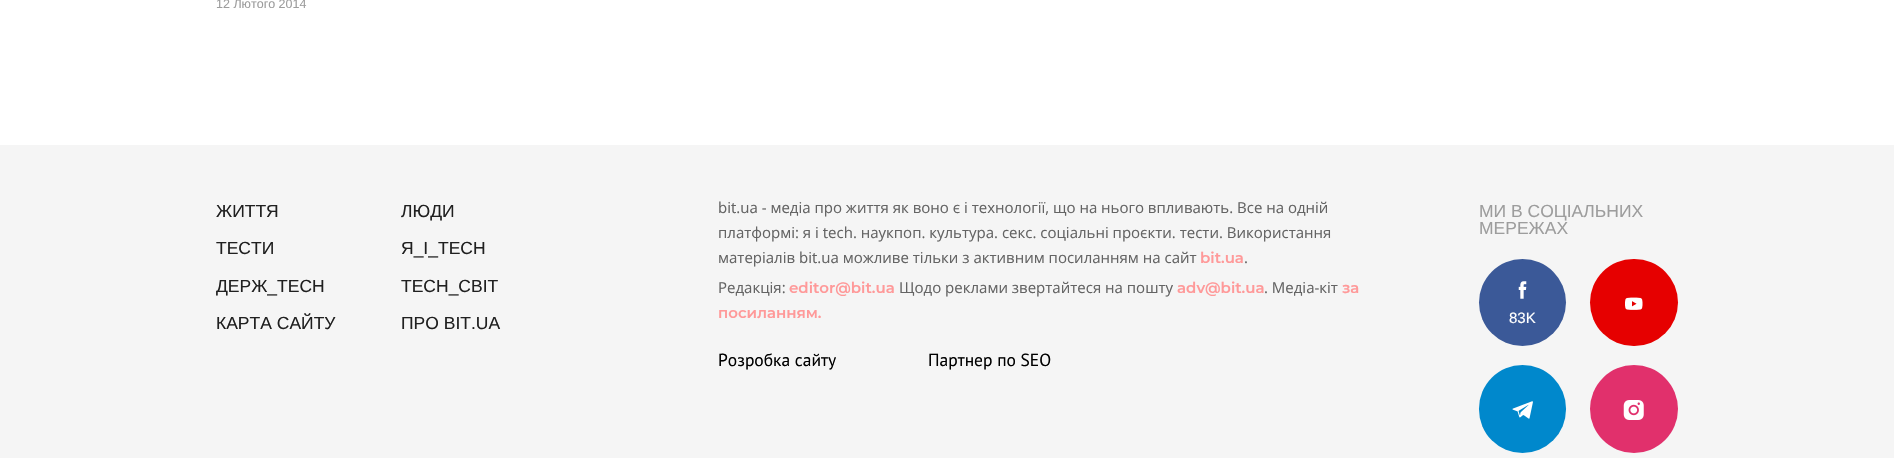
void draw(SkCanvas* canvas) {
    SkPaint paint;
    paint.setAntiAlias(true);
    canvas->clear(0xFFFFFFFF);
    SkFont font1(fontMgr->matchFamilyStyle("Liberation Sans", SkFontStyle::Normal()), 12.5f);
    font1.setSubpixel(true);
    paint.setColor(0xFF9D9D9D);
    canvas->drawString("12 Лютого 2014", 216, 8, font1, paint);
    paint.setColor(0xFFF5F5F5);
    canvas->drawRect(SkRect::MakeXYWH(0, 145, 1894, 313), paint);
    SkFont font2(fontMgr->matchFamilyStyle("Liberation Sans", SkFontStyle::Normal()), 17.5f);
    font2.setSubpixel(true);
    paint.setColor(0xFF202020);
    canvas->drawString("ЖИТТЯ", 216, 217, font2, paint);
    canvas->drawString("ЛЮДИ", 401, 217, font2, paint);
    canvas->drawString("ТЕСТИ", 216, 254, font2, paint);
    canvas->drawString("Я_І_TECH", 401, 254, font2, paint);
    canvas->drawString("ДЕРЖ_TECH", 216, 292, font2, paint);
    canvas->drawString("TECH_СВІТ", 401, 292, font2, paint);
    canvas->drawString("КАРТА САЙТУ", 216, 329, font2, paint);
    canvas->drawString("ПРО BIT.UA", 401, 329, font2, paint);
    SkFont font3(fontMgr->matchFamilyStyle("Open Sans", SkFontStyle::Normal()), 15);
    font3.setSubpixel(true);
    paint.setColor(0xFF646464);
    canvas->drawString("bit.ua - медіа про життя як воно є і технології, що на нього впливають. Все на одній", 718, 213, font3, paint);
    canvas->drawString("платформі: я і tech. наукпоп. культура. секс. соціальні проєкти. тести. Використання", 718, 238, font3, paint);
    canvas->drawString("матеріалів bit.ua можливе тільки з активним посиланням на сайт", 718, 263, font3, paint);
    SkFont font4(fontMgr->matchFamilyStyle("Montserrat", SkFontStyle(600, SkFontStyle::kNormal_Width, SkFontStyle::kUpright_Slant)), 15);
    font4.setSubpixel(true);
    paint.setColor(0xFFFF9999);
    canvas->drawString("bit.ua", 1200, 263, font4, paint);
    paint.setColor(0xFF646464);
    canvas->drawString(".", 1244, 263, font3, paint);
    canvas->drawString("Редакція:", 718, 293, font3, paint);
    paint.setColor(0xFFFF9999);
    canvas->drawString("editor@bit.ua", 789, 293, font4, paint);
    paint.setColor(0xFF646464);
    canvas->drawString("Щодо реклами звертайтеся на пошту", 899, 293, font3, paint);
    paint.setColor(0xFFFF9999);
    canvas->drawString("adv@bit.ua", 1177, 293, font4, paint);
    paint.setColor(0xFF646464);
    canvas->drawString(". Медіа-кіт", 1264, 293, font3, paint);
    paint.setColor(0xFFFF9999);
    canvas->drawString("за", 1342, 293, font4, paint);
    canvas->drawString("посиланням.", 718, 318, font4, paint);
    SkFont font5(fontMgr->matchFamilyStyle("PT Sans", SkFontStyle::Normal()), 17.5f);
    font5.setSubpixel(true);
    paint.setColor(0xFF000000);
    canvas->drawString("Розробка сайту", 718, 366, font5, paint);
    canvas->drawString("Партнер по SEO", 928, 366, font5, paint);
    paint.setColor(0xFF9D9D9D);
    canvas->drawString("МИ В СОЦІАЛЬНИХ", 1479, 217, font2, paint);
    canvas->drawString("МЕРЕЖАХ", 1479, 234, font2, paint);
    paint.setColor(0xFF3B5998);
    canvas->drawCircle(1522.5f, 302.5f, 43.5f, paint);
    canvas->drawImageRect(SkImages::DeferredFromEncodedData(SkData::MakeFromFileName("img1.png")), SkRect::MakeXYWH(1518, 281, 9, 18), SkSamplingOptions());
    SkFont font6(fontMgr->matchFamilyStyle("Liberation Sans", SkFontStyle::Normal()), 15);
    font6.setSubpixel(true);
    paint.setColor(0xFFFFFFFF);
    canvas->drawString("83K", 1509, 323, font6, paint);
    paint.setColor(0xFFE60000);
    canvas->drawRoundRect(SkRect::MakeXYWH(1590, 259, 88, 87), 43.5f, 43.5f, paint);
    canvas->drawImageRect(SkImages::DeferredFromEncodedData(SkData::MakeFromFileName("img2.png")), SkRect::MakeXYWH(1625, 297, 18, 13), SkSamplingOptions());
    paint.setColor(0xFF0088CC);
    canvas->drawRoundRect(SkRect::MakeXYWH(1479, 365, 87, 88), 43.5f, 43.5f, paint);
    canvas->drawImageRect(SkImages::DeferredFromEncodedData(SkData::MakeFromFileName("img3.png")), SkRect::MakeXYWH(1512, 401, 21, 18), SkSamplingOptions());
    paint.setColor(0xFFE1306C);
    canvas->drawCircle(1634, 409, 44, paint);
    canvas->drawImageRect(SkImages::DeferredFromEncodedData(SkData::MakeFromFileName("img4.png")), SkRect::MakeXYWH(1623, 400, 21, 20), SkSamplingOptions());
}
